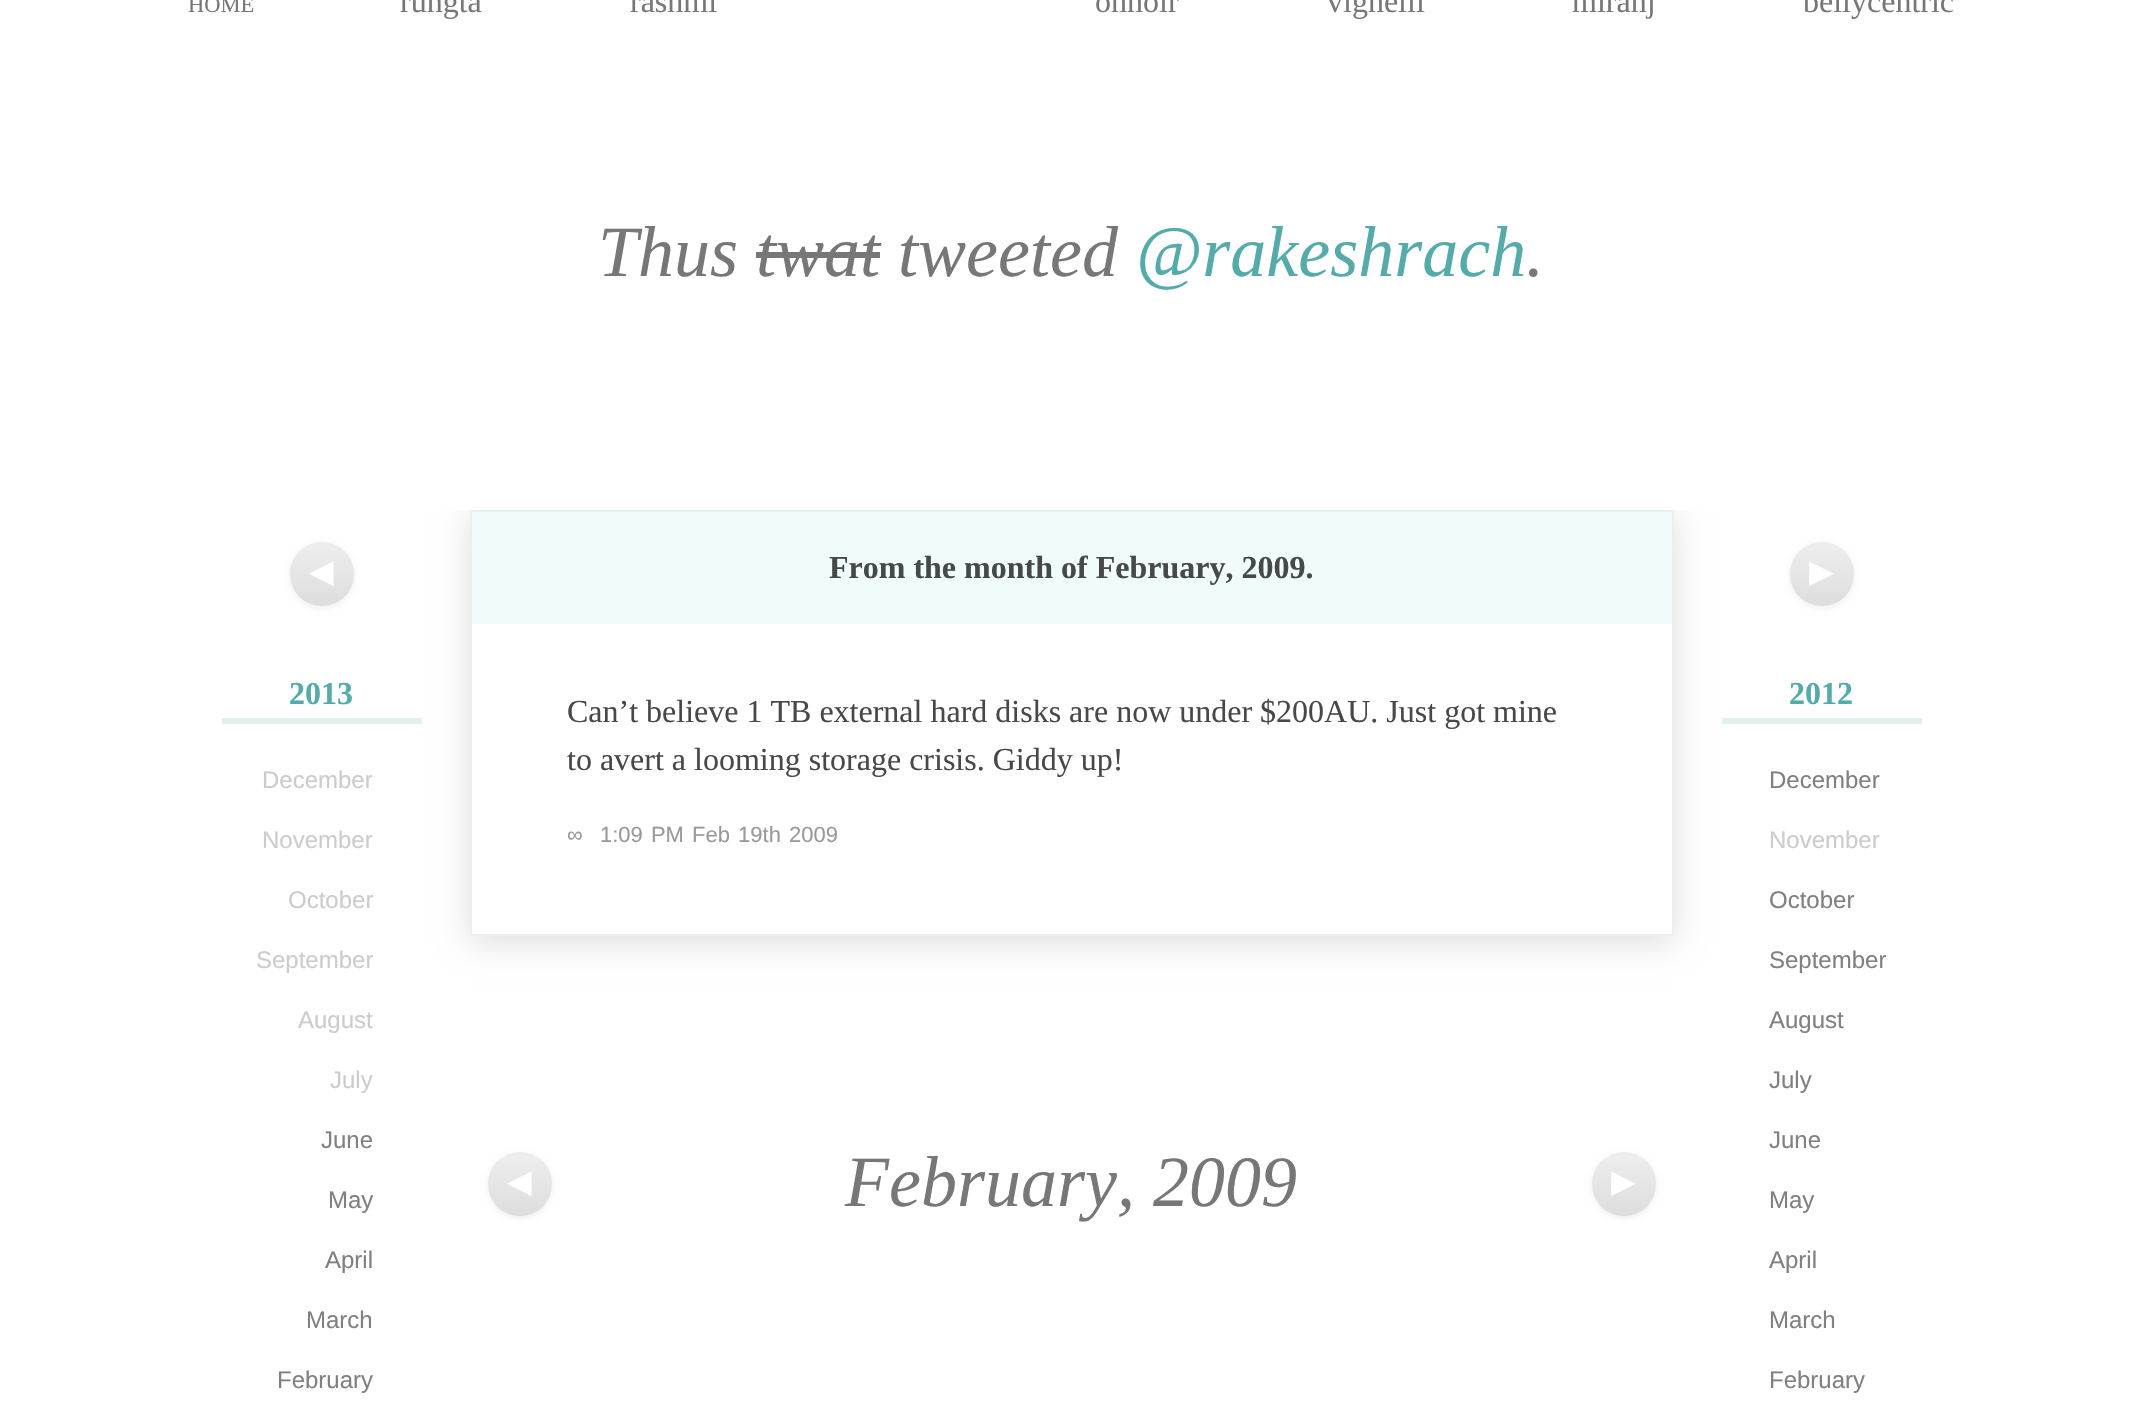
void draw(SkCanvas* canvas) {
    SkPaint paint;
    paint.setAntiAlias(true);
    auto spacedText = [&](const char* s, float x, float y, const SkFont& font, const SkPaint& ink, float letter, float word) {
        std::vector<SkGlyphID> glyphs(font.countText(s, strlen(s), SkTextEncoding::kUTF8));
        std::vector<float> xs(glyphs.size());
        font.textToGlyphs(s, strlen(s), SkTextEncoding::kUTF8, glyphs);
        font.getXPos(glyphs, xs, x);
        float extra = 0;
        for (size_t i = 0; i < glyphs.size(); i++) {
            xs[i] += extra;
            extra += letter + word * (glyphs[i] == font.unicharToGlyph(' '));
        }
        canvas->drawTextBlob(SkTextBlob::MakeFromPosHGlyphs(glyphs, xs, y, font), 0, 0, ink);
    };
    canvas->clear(0xFFFFFFFF);
    SkFont font1(fontMgr->matchFamilyStyle("Liberation Serif", SkFontStyle::Normal()), 22.5f);
    font1.setSubpixel(true);
    paint.setColor(0xFF777777);
    canvas->drawString("HOME", 188, 12, font1, paint);
    SkFont font2(fontMgr->matchFamilyStyle("Liberation Serif", SkFontStyle::Normal()), 32);
    font2.setSubpixel(true);
    canvas->drawString("rungta", 400, 12, font2, paint);
    canvas->drawString("rashmi", 630, 12, font2, paint);
    canvas->drawString("ohnoir", 1095, 12, font2, paint);
    canvas->drawString("vignelli", 1327, 12, font2, paint);
    canvas->drawString("miranj", 1572, 12, font2, paint);
    canvas->drawString("bellycentric", 1803, 12, font2, paint);
    SkFont font3(fontMgr->matchFamilyStyle("Liberation Serif", SkFontStyle::Italic()), 72);
    font3.setSubpixel(true);
    canvas->drawString("Thus twat tweeted", 598, 276, font3, paint);
    paint.setColor(0xFF55AAAA);
    canvas->drawString("@rakeshrach", 1136, 276, font3, paint);
    paint.setColor(0xFF777777);
    canvas->drawRect(SkRect::MakeXYWH(756, 252, 124, 6), paint);
    canvas->drawString(".", 1526, 276, font3, paint);
    paint.setColor(0xFFEEEEEE);
    paint.setMaskFilter(SkMaskFilter::MakeBlur(kNormal_SkBlurStyle, 3));
    canvas->drawRoundRect(SkRect::MakeXYWH(290, 544, 64, 64), 32, 32, paint);
    paint.setMaskFilter(nullptr);
    {
        const SkColor colors[] = {0xFFEEEEEE, 0xFFDDDDDD};
        const float stops[] = {0, 1};
        const SkPoint ends[] = {{290, 542}, {290, 606}};
        paint.setShader(SkGradientShader::MakeLinear(ends, colors, stops, 2, SkTileMode::kClamp));
        paint.setAlpha(255);
    }
    canvas->drawCircle(322, 574, 32, paint);
    SkFont font4(fontMgr->matchFamilyStyle("DejaVu Sans", SkFontStyle::Normal()), 32);
    font4.setSubpixel(true);
    paint.setShader(nullptr);
    paint.setColor(0xFFFFFFFF);
    canvas->drawString("◀", 309, 582, font4, paint);
    paint.setColor(0xFFE3EEEE);
    canvas->drawRect(SkRect::MakeXYWH(222, 718, 200, 6), paint);
    SkFont font5(fontMgr->matchFamilyStyle("Liberation Serif", SkFontStyle::Bold()), 32);
    font5.setSubpixel(true);
    paint.setColor(0xFF55AAAA);
    canvas->drawString("2013", 289, 704, font5, paint);
    SkFont font6(fontMgr->matchFamilyStyle("Liberation Sans", SkFontStyle::Normal()), 24);
    font6.setSubpixel(true);
    paint.setColor(0xFFCCCCCC);
    canvas->drawString("December", 262, 788, font6, paint);
    canvas->drawString("November", 262, 848, font6, paint);
    canvas->drawString("October", 288, 908, font6, paint);
    canvas->drawString("September", 256, 968, font6, paint);
    canvas->drawString("August", 298, 1028, font6, paint);
    canvas->drawString("July", 330, 1088, font6, paint);
    paint.setColor(0xFF808080);
    canvas->drawString("June", 321, 1148, font6, paint);
    canvas->drawString("May", 328, 1208, font6, paint);
    canvas->drawString("April", 325, 1268, font6, paint);
    canvas->drawString("March", 306, 1328, font6, paint);
    canvas->drawString("February", 277, 1388, font6, paint);
    canvas->save();
    canvas->clipRect(SkRect::MakeXYWH(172, 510, 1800, 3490));
    canvas->clipPath(SkPathBuilder(SkPathFillType::kEvenOdd).moveTo(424, 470).lineTo(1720, 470).lineTo(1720, 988).lineTo(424, 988).close().moveTo(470, 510).lineTo(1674, 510).lineTo(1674, 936).lineTo(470, 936).close().detach(), true);
    paint.setColor(0xFFDDDDDD);
    paint.setMaskFilter(SkMaskFilter::MakeBlur(kNormal_SkBlurStyle, 15));
    canvas->drawRect(SkRect::MakeXYWH(470, 516, 1204, 426), paint);
    paint.setMaskFilter(nullptr);
    canvas->restore();
    paint.setColor(0xFFEEEEEE);
    canvas->drawRect(SkRect::MakeXYWH(1672, 510, 2, 426), paint);
    canvas->drawRect(SkRect::MakeXYWH(470, 934, 1204, 2), paint);
    canvas->drawRect(SkRect::MakeXYWH(470, 510, 2, 426), paint);
    paint.setColor(0xFFF0FCFC);
    canvas->drawRect(SkRect::MakeXYWH(472, 512, 1200, 112), paint);
    paint.setColor(0xFFE3F3F3);
    canvas->drawRect(SkRect::MakeXYWH(472, 510, 1200, 2), paint);
    paint.setColor(0xFF474949);
    canvas->drawString("From the month of February, 2009.", 829, 578, font5, paint);
    canvas->drawString("Can’t believe 1 TB external hard disks are now under $200AU. Just got mine", 567, 722, font2, paint);
    canvas->drawString("to avert a looming storage crisis. Giddy up!", 567, 770, font2, paint);
    SkFont font7(fontMgr->matchFamilyStyle("Liberation Sans", SkFontStyle::Normal()), 22);
    font7.setSubpixel(true);
    paint.setColor(0xFF999999);
    canvas->drawString("∞", 567, 842, font7, paint);
    spacedText("1:09 PM Feb 19th 2009", 600, 842, font7, paint, 0, 2);
    paint.setColor(0xFFEEEEEE);
    paint.setMaskFilter(SkMaskFilter::MakeBlur(kNormal_SkBlurStyle, 3));
    canvas->drawRoundRect(SkRect::MakeXYWH(1790, 544, 64, 64), 32, 32, paint);
    paint.setMaskFilter(nullptr);
    {
        const SkColor colors[] = {0xFFEEEEEE, 0xFFDDDDDD};
        const float stops[] = {0, 1};
        const SkPoint ends[] = {{1790, 542}, {1790, 606}};
        paint.setShader(SkGradientShader::MakeLinear(ends, colors, stops, 2, SkTileMode::kClamp));
        paint.setAlpha(255);
    }
    canvas->drawCircle(1822, 574, 32, paint);
    paint.setShader(nullptr);
    paint.setColor(0xFFFFFFFF);
    canvas->drawString("▶", 1809, 582, font4, paint);
    paint.setColor(0xFFE3EEEE);
    canvas->drawRect(SkRect::MakeXYWH(1722, 718, 200, 6), paint);
    paint.setColor(0xFF55AAAA);
    canvas->drawString("2012", 1789, 704, font5, paint);
    paint.setColor(0xFF808080);
    canvas->drawString("December", 1769, 788, font6, paint);
    paint.setColor(0xFFCCCCCC);
    canvas->drawString("November", 1769, 848, font6, paint);
    paint.setColor(0xFF808080);
    canvas->drawString("October", 1769, 908, font6, paint);
    canvas->drawString("September", 1769, 968, font6, paint);
    canvas->drawString("August", 1769, 1028, font6, paint);
    canvas->drawString("July", 1769, 1088, font6, paint);
    canvas->drawString("June", 1769, 1148, font6, paint);
    canvas->drawString("May", 1769, 1208, font6, paint);
    canvas->drawString("April", 1769, 1268, font6, paint);
    canvas->drawString("March", 1769, 1328, font6, paint);
    canvas->drawString("February", 1769, 1388, font6, paint);
    paint.setColor(0xFFEEEEEE);
    paint.setMaskFilter(SkMaskFilter::MakeBlur(kNormal_SkBlurStyle, 3));
    canvas->drawRoundRect(SkRect::MakeXYWH(488, 1154, 64, 64), 32, 32, paint);
    paint.setMaskFilter(nullptr);
    {
        const SkColor colors[] = {0xFFEEEEEE, 0xFFDDDDDD};
        const float stops[] = {0, 1};
        const SkPoint ends[] = {{488, 1152}, {488, 1216}};
        paint.setShader(SkGradientShader::MakeLinear(ends, colors, stops, 2, SkTileMode::kClamp));
        paint.setAlpha(255);
    }
    canvas->drawCircle(520, 1184, 32, paint);
    paint.setShader(nullptr);
    paint.setColor(0xFFFFFFFF);
    canvas->drawString("◀", 507, 1192, font4, paint);
    paint.setColor(0xFF777777);
    canvas->drawString("February, 2009", 845, 1206, font3, paint);
    paint.setColor(0xFFEEEEEE);
    paint.setMaskFilter(SkMaskFilter::MakeBlur(kNormal_SkBlurStyle, 3));
    canvas->drawRoundRect(SkRect::MakeXYWH(1592, 1154, 64, 64), 32, 32, paint);
    paint.setMaskFilter(nullptr);
    {
        const SkColor colors[] = {0xFFEEEEEE, 0xFFDDDDDD};
        const float stops[] = {0, 1};
        const SkPoint ends[] = {{1592, 1152}, {1592, 1216}};
        paint.setShader(SkGradientShader::MakeLinear(ends, colors, stops, 2, SkTileMode::kClamp));
        paint.setAlpha(255);
    }
    canvas->drawCircle(1624, 1184, 32, paint);
    paint.setShader(nullptr);
    paint.setColor(0xFFFFFFFF);
    canvas->drawString("▶", 1611, 1192, font4, paint);
}
